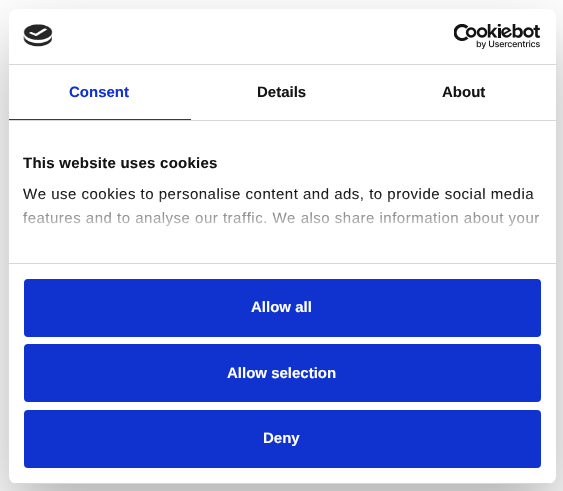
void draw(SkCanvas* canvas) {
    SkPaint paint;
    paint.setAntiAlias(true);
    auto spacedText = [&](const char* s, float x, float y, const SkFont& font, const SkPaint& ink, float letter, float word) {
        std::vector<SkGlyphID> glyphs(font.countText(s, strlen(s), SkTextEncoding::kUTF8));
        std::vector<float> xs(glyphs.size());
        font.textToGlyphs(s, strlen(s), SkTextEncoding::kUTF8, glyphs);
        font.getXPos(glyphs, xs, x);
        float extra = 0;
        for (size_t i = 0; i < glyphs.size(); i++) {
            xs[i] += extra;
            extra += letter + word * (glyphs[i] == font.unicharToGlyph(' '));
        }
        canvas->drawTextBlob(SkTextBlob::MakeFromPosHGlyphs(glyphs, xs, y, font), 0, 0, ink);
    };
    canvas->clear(0xFFFFFFFF);
    paint.setColor(0x4D000000);
    paint.setMaskFilter(SkMaskFilter::MakeBlur(kNormal_SkBlurStyle, 34));
    canvas->drawRoundRect(SkRect::MakeXYWH(9, 41, 547, 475), 8, 8, paint);
    paint.setMaskFilter(nullptr);
    paint.setColor(0xFFFFFFFF);
    canvas->drawRoundRect(SkRect::MakeXYWH(9, 9, 547, 475), 8, 8, paint);
    paint.setColor(0xFFD6D6D6);
    canvas->drawRect(SkRect::MakeXYWH(9, 64, 547, 1), paint);
    canvas->drawImageRect(SkImages::DeferredFromEncodedData(SkData::MakeFromFileName("img1.png")), SkRect::MakeXYWH(23, 24, 30, 23), SkSamplingOptions());
    canvas->drawImageRect(SkImages::DeferredFromEncodedData(SkData::MakeFromFileName("img2.png")), SkRect::MakeXYWH(454, 24, 87, 25), SkSamplingOptions());
    canvas->drawRect(SkRect::MakeXYWH(9, 120, 547, 1), paint);
    paint.setColor(0xFF1032CF);
    canvas->drawRect(SkRect::MakeXYWH(9, 119, 182, 1), paint);
    SkFont font1(fontMgr->matchFamilyStyle("Liberation Sans", SkFontStyle::Bold()), 15);
    font1.setSubpixel(true);
    canvas->drawString("Consent", 69, 97, font1, paint);
    paint.setColor(0xFF141414);
    canvas->drawString("Details", 257, 97, font1, paint);
    canvas->drawString("About", 442, 97, font1, paint);
    paint.setColor(0xFFD6D6D6);
    canvas->drawRect(SkRect::MakeXYWH(9, 263, 547, 1), paint);
    paint.setColor(0xFF141414);
    spacedText("This website uses cookies", 23, 168, font1, paint, 0.25f, 0);
    SkFont font2(fontMgr->matchFamilyStyle("Liberation Sans", SkFontStyle::Normal()), 15);
    font2.setSubpixel(true);
    spacedText("We use cookies to personalise content and ads, to provide social media", 23, 199, font2, paint, 0.5f, 0);
    spacedText("features and to analyse our traffic. We also share information about your", 23, 223, font2, paint, 0.5f, 0);
    {
        const SkColor colors[] = {0xFFFFFFFF, 0xCCFFFFFF, 0x00FFFFFF};
        const float stops[] = {0, 0.5f, 1};
        const SkPoint ends[] = {{276, 263}, {276, 192}};
        paint.setShader(SkGradientShader::MakeLinear(ends, colors, stops, 3, SkTileMode::kClamp));
        paint.setAlpha(255);
    }
    canvas->drawRect(SkRect::MakeXYWH(23, 193, 516, 34), paint);
    canvas->save();
    canvas->clipPath(SkPathBuilder().moveTo(17, 9).lineTo(548, 9).cubicTo(552.5f, 9, 556, 12.5f, 556, 17).lineTo(556, 476).cubicTo(556, 480.5f, 552.5f, 484, 548, 484).lineTo(17, 484).cubicTo(12.5f, 484, 9, 480.5f, 9, 476).lineTo(9, 17).cubicTo(9, 12.5f, 12.5f, 9, 17, 9).close().detach(), true);
    paint.setShader(nullptr);
    paint.setColor(0xFFD6D6D6);
    canvas->drawRect(SkRect::MakeXYWH(9, 483, 547, 1), paint);
    canvas->restore();
    paint.setColor(0xFF1032CF);
    canvas->drawRoundRect(SkRect::MakeXYWH(25, 280, 515, 56), 3, 3, paint);
    paint.setStyle(SkPaint::kStroke_Style);
    paint.setStrokeWidth(2);
    canvas->drawRoundRect(SkRect::MakeXYWH(25, 280, 515, 56), 3, 3, paint);
    paint.setStyle(SkPaint::kFill_Style);
    paint.setColor(0xFFFFFFFF);
    canvas->drawString("Allow all", 251, 312, font1, paint);
    paint.setColor(0xFF1032CF);
    canvas->drawRoundRect(SkRect::MakeXYWH(25, 345, 515, 56), 3, 3, paint);
    paint.setStyle(SkPaint::kStroke_Style);
    canvas->drawRoundRect(SkRect::MakeXYWH(25, 345, 515, 56), 3, 3, paint);
    paint.setStyle(SkPaint::kFill_Style);
    paint.setColor(0xFFFFFFFF);
    canvas->drawString("Allow selection", 227, 378, font1, paint);
    paint.setColor(0xFF1032CF);
    canvas->drawRoundRect(SkRect::MakeXYWH(25, 411, 515, 56), 3, 3, paint);
    paint.setStyle(SkPaint::kStroke_Style);
    canvas->drawRoundRect(SkRect::MakeXYWH(25, 411, 515, 56), 3, 3, paint);
    paint.setStyle(SkPaint::kFill_Style);
    paint.setColor(0xFFFFFFFF);
    canvas->drawString("Deny", 263, 443, font1, paint);
}
